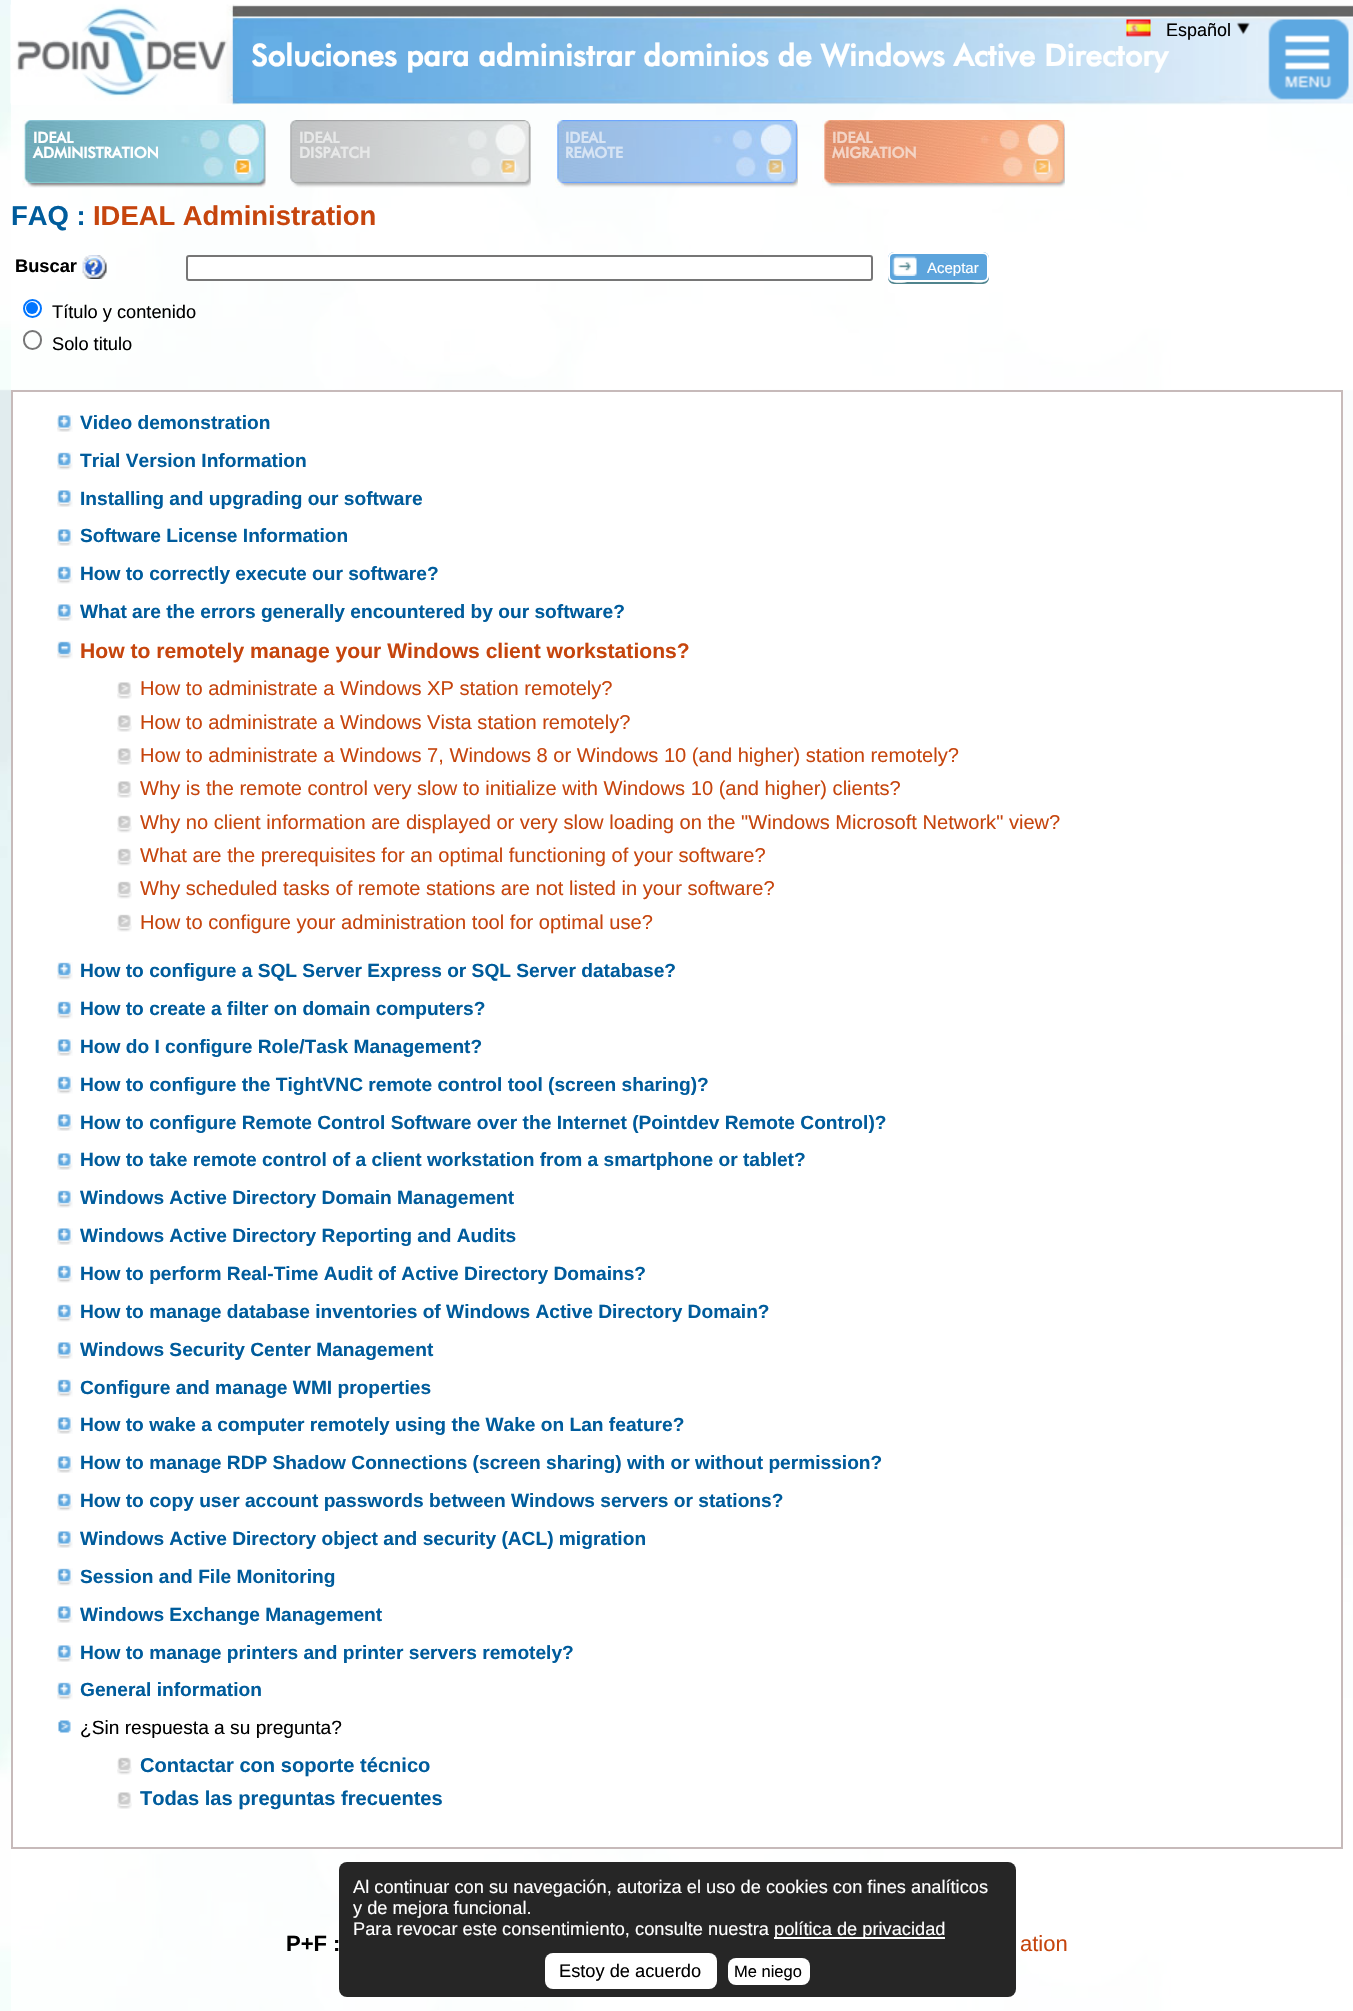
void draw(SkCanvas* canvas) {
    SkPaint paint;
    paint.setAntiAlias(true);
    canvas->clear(0xFFFFFFFF);
    canvas->drawImageRect(SkImages::DeferredFromEncodedData(SkData::MakeFromFileName("img1.png")), SkRect::MakeXYWH(0, 0, 1353, 2011), SkSamplingOptions());
    paint.setColor(0xFFFFFFFF);
    canvas->drawRect(SkRect::MakeXYWH(11, 0, 1342, 105), paint);
    canvas->drawImageRect(SkImages::DeferredFromEncodedData(SkData::MakeFromFileName("img2.png")), SkRect::MakeXYWH(232, 4, 1121, 101), SkSamplingOptions());
    canvas->drawImageRect(SkImages::DeferredFromEncodedData(SkData::MakeFromFileName("img3.png")), SkRect::MakeXYWH(10, 4, 223, 100), SkSamplingOptions());
    canvas->drawImageRect(SkImages::DeferredFromEncodedData(SkData::MakeFromFileName("img4.png")), SkRect::MakeXYWH(1126, 19, 25, 18), SkSamplingOptions());
    SkFont font1(fontMgr->matchFamilyStyle("Liberation Sans", SkFontStyle::Normal()), 18);
    font1.setSubpixel(true);
    paint.setColor(0xFF000000);
    canvas->drawString("Español", 1166, 36, font1, paint);
    canvas->drawImageRect(SkImages::DeferredFromEncodedData(SkData::MakeFromFileName("img5.png")), SkRect::MakeXYWH(1236, 22, 14, 13), SkSamplingOptions());
    canvas->drawImageRect(SkImages::DeferredFromEncodedData(SkData::MakeFromFileName("img6.png")), SkRect::MakeXYWH(1268, 19, 81, 81), SkSamplingOptions());
    SkFont font2(fontMgr->matchFamilyStyle("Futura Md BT", SkFontStyle::Bold()), 30);
    font2.setSubpixel(true);
    paint.setColor(0xFFFFFFFF);
    canvas->drawString("Soluciones para administrar dominios de Windows Active Directory", 251, 66, font2, paint);
    canvas->drawImageRect(SkImages::DeferredFromEncodedData(SkData::MakeFromFileName("img7.png")), SkRect::MakeXYWH(22, 120, 244, 68), SkSamplingOptions());
    SkFont font3(fontMgr->matchFamilyStyle("Futura Md BT", SkFontStyle::Bold()), 15);
    font3.setSubpixel(true);
    canvas->drawString("IDEAL", 33, 143, font3, paint);
    canvas->drawString("ADMINISTRATION", 33, 158, font3, paint);
    canvas->drawImageRect(SkImages::DeferredFromEncodedData(SkData::MakeFromFileName("img8.png")), SkRect::MakeXYWH(234, 159, 17, 15), SkSamplingOptions());
    canvas->drawImageRect(SkImages::DeferredFromEncodedData(SkData::MakeFromFileName("img9.png")), SkRect::MakeXYWH(290, 120, 241, 68), SkSamplingOptions());
    paint.setColor(0xFFE7E8E8);
    canvas->drawString("IDEAL", 299, 143, font3, paint);
    canvas->drawString("DISPATCH", 299, 158, font3, paint);
    canvas->drawImageRect(SkImages::DeferredFromEncodedData(SkData::MakeFromFileName("img10.png")), SkRect::MakeXYWH(499, 159, 17, 15), SkSamplingOptions());
    canvas->drawImageRect(SkImages::DeferredFromEncodedData(SkData::MakeFromFileName("img11.png")), SkRect::MakeXYWH(555, 120, 243, 68), SkSamplingOptions());
    paint.setColor(0xFFD7E4F4);
    canvas->drawString("IDEAL", 565, 143, font3, paint);
    canvas->drawString("REMOTE", 565, 158, font3, paint);
    canvas->drawImageRect(SkImages::DeferredFromEncodedData(SkData::MakeFromFileName("img12.png")), SkRect::MakeXYWH(766, 159, 17, 15), SkSamplingOptions());
    canvas->drawImageRect(SkImages::DeferredFromEncodedData(SkData::MakeFromFileName("img13.png")), SkRect::MakeXYWH(822, 120, 243, 68), SkSamplingOptions());
    paint.setColor(0xFFF4D4C5);
    canvas->drawString("IDEAL", 832, 143, font3, paint);
    canvas->drawString("MIGRATION", 832, 158, font3, paint);
    canvas->drawImageRect(SkImages::DeferredFromEncodedData(SkData::MakeFromFileName("img14.png")), SkRect::MakeXYWH(1033, 159, 17, 15), SkSamplingOptions());
    SkFont font4(fontMgr->matchFamilyStyle("Liberation Sans", SkFontStyle::Bold()), 27.4f);
    font4.setSubpixel(true);
    paint.setColor(0xFF005C9C);
    canvas->drawString("FAQ :", 11, 225, font4, paint);
    paint.setColor(0xFFC6450D);
    canvas->drawString("IDEAL Administration", 93, 225, font4, paint);
    SkFont font5(fontMgr->matchFamilyStyle("Liberation Sans", SkFontStyle::Bold()), 18.25f);
    font5.setSubpixel(true);
    paint.setColor(0xFF000000);
    canvas->drawString("Buscar", 15, 272, font5, paint);
    canvas->drawImageRect(SkImages::DeferredFromEncodedData(SkData::MakeFromFileName("img15.png")), SkRect::MakeXYWH(82, 255, 25, 24), SkSamplingOptions());
    paint.setColor(0xFFFFFFFF);
    canvas->drawRoundRect(SkRect::MakeXYWH(187, 256, 685, 24), 2, 2, paint);
    paint.setStyle(SkPaint::kStroke_Style);
    paint.setStrokeWidth(2);
    paint.setColor(0xFF767676);
    canvas->drawRoundRect(SkRect::MakeXYWH(187, 256, 685, 24), 2, 2, paint);
    paint.setStyle(SkPaint::kFill_Style);
    paint.setColor(0xFF50848D);
    canvas->drawPath(SkPathBuilder().moveTo(888, 276).lineTo(888, 278).cubicTo(888, 281, 891, 284, 894, 284).lineTo(983, 284).cubicTo(986, 284, 989, 281, 989, 278).lineTo(989, 260).lineTo(988, 258).lineTo(988, 273).cubicTo(988, 286, 979, 282, 968, 282).lineTo(909, 282).cubicTo(905, 282, 888, 286, 888, 276).close().detach(), paint);
    paint.setColor(0xFF5CA4DC);
    canvas->drawRoundRect(SkRect::MakeXYWH(888, 252, 101, 30), 6, 6, paint);
    canvas->drawImageRect(SkImages::DeferredFromEncodedData(SkData::MakeFromFileName("img16.png")), SkRect::MakeXYWH(892, 256, 25, 20), SkSamplingOptions());
    paint.setStyle(SkPaint::kStroke_Style);
    paint.setColor(0xFFFFFFFF);
    canvas->drawRoundRect(SkRect::MakeXYWH(889, 253, 99, 28), 5, 5, paint);
    SkFont font6(fontMgr->matchFamilyStyle("Liberation Sans", SkFontStyle::Normal()), 15);
    font6.setSubpixel(true);
    paint.setStyle(SkPaint::kFill_Style);
    canvas->drawString("Aceptar", 927, 273, font6, paint);
    paint.setStyle(SkPaint::kStroke_Style);
    paint.setColor(0xFF0075FF);
    canvas->drawCircle(32.5f, 308.5f, 8.5f, paint);
    paint.setStyle(SkPaint::kFill_Style);
    canvas->drawCircle(32, 308, 6, paint);
    SkFont font7(fontMgr->matchFamilyStyle("Liberation Sans", SkFontStyle::Normal()), 18.25f);
    font7.setSubpixel(true);
    paint.setColor(0xFF000000);
    canvas->drawString("Título y contenido", 52, 318, font7, paint);
    paint.setStyle(SkPaint::kStroke_Style);
    paint.setColor(0xFF767676);
    canvas->drawRoundRect(SkRect::MakeXYWH(24, 331, 17, 18), 8.5f, 8.5f, paint);
    paint.setStyle(SkPaint::kFill_Style);
    paint.setColor(0xFF000000);
    canvas->drawString("Solo titulo", 52, 350, font7, paint);
    paint.setColor(0xFFC7BABA);
    canvas->drawRect(SkRect::MakeXYWH(11, 390, 1332, 2), paint);
    canvas->drawRect(SkRect::MakeXYWH(1341, 390, 2, 1458), paint);
    canvas->drawRect(SkRect::MakeXYWH(11, 1847, 1332, 2), paint);
    canvas->drawRect(SkRect::MakeXYWH(11, 390, 2, 1458), paint);
    paint.setColor(0xFFFFFFFF);
    canvas->drawRect(SkRect::MakeXYWH(13, 392, 1328, 1455), paint);
    canvas->drawImageRect(SkImages::DeferredFromEncodedData(SkData::MakeFromFileName("img17.png")), SkRect::MakeXYWH(57, 415, 16, 17), SkSamplingOptions());
    SkFont font8(fontMgr->matchFamilyStyle("Liberation Sans", SkFontStyle::Bold()), 19.15f);
    font8.setSubpixel(true);
    paint.setColor(0xFF005C9C);
    canvas->drawString("Video demonstration", 80, 429, font8, paint);
    canvas->drawImageRect(SkImages::DeferredFromEncodedData(SkData::MakeFromFileName("img18.png")), SkRect::MakeXYWH(57, 452, 16, 18), SkSamplingOptions());
    canvas->drawString("Trial Version Information", 80, 467, font8, paint);
    canvas->drawImageRect(SkImages::DeferredFromEncodedData(SkData::MakeFromFileName("img17.png")), SkRect::MakeXYWH(57, 490, 16, 17), SkSamplingOptions());
    canvas->drawString("Installing and upgrading our software", 80, 505, font8, paint);
    canvas->drawImageRect(SkImages::DeferredFromEncodedData(SkData::MakeFromFileName("img17.png")), SkRect::MakeXYWH(57, 529, 16, 17), SkSamplingOptions());
    canvas->drawString("Software License Information", 80, 542, font8, paint);
    canvas->drawImageRect(SkImages::DeferredFromEncodedData(SkData::MakeFromFileName("img18.png")), SkRect::MakeXYWH(57, 566, 16, 18), SkSamplingOptions());
    canvas->drawString("How to correctly execute our software?", 80, 580, font8, paint);
    canvas->drawImageRect(SkImages::DeferredFromEncodedData(SkData::MakeFromFileName("img17.png")), SkRect::MakeXYWH(57, 604, 16, 17), SkSamplingOptions());
    canvas->drawString("What are the errors generally encountered by our software?", 80, 618, font8, paint);
    canvas->drawImageRect(SkImages::DeferredFromEncodedData(SkData::MakeFromFileName("img19.png")), SkRect::MakeXYWH(57, 641, 16, 18), SkSamplingOptions());
    SkFont font9(fontMgr->matchFamilyStyle("Liberation Sans", SkFontStyle::Bold()), 21.1f);
    font9.setSubpixel(true);
    paint.setColor(0xFFC6450D);
    canvas->drawString("How to remotely manage your Windows client workstations?", 80, 658, font9, paint);
    canvas->drawImageRect(SkImages::DeferredFromEncodedData(SkData::MakeFromFileName("img20.png")), SkRect::MakeXYWH(117, 682, 15, 17), SkSamplingOptions());
    SkFont font10(fontMgr->matchFamilyStyle("Liberation Sans", SkFontStyle::Normal()), 20.1f);
    font10.setSubpixel(true);
    canvas->drawString("How to administrate a Windows XP station remotely?", 140, 695, font10, paint);
    canvas->drawImageRect(SkImages::DeferredFromEncodedData(SkData::MakeFromFileName("img20.png")), SkRect::MakeXYWH(117, 715, 15, 17), SkSamplingOptions());
    canvas->drawString("How to administrate a Windows Vista station remotely?", 140, 729, font10, paint);
    canvas->drawImageRect(SkImages::DeferredFromEncodedData(SkData::MakeFromFileName("img20.png")), SkRect::MakeXYWH(117, 748, 15, 17), SkSamplingOptions());
    canvas->drawString("How to administrate a Windows 7, Windows 8 or Windows 10 (and higher) station remotely?", 140, 762, font10, paint);
    canvas->drawImageRect(SkImages::DeferredFromEncodedData(SkData::MakeFromFileName("img20.png")), SkRect::MakeXYWH(117, 781, 15, 17), SkSamplingOptions());
    canvas->drawString("Why is the remote control very slow to initialize with Windows 10 (and higher) clients?", 140, 795, font10, paint);
    canvas->drawImageRect(SkImages::DeferredFromEncodedData(SkData::MakeFromFileName("img21.png")), SkRect::MakeXYWH(117, 815, 15, 18), SkSamplingOptions());
    canvas->drawString("Why no client information are displayed or very slow loading on the \"Windows Microsoft Network\" view?", 140, 829, font10, paint);
    canvas->drawImageRect(SkImages::DeferredFromEncodedData(SkData::MakeFromFileName("img21.png")), SkRect::MakeXYWH(117, 848, 15, 18), SkSamplingOptions());
    canvas->drawString("What are the prerequisites for an optimal functioning of your software?", 140, 862, font10, paint);
    canvas->drawImageRect(SkImages::DeferredFromEncodedData(SkData::MakeFromFileName("img21.png")), SkRect::MakeXYWH(117, 881, 15, 18), SkSamplingOptions());
    canvas->drawString("Why scheduled tasks of remote stations are not listed in your software?", 140, 895, font10, paint);
    canvas->drawImageRect(SkImages::DeferredFromEncodedData(SkData::MakeFromFileName("img21.png")), SkRect::MakeXYWH(117, 914, 15, 18), SkSamplingOptions());
    canvas->drawString("How to configure your administration tool for optimal use?", 140, 929, font10, paint);
    canvas->drawImageRect(SkImages::DeferredFromEncodedData(SkData::MakeFromFileName("img18.png")), SkRect::MakeXYWH(57, 962, 16, 18), SkSamplingOptions());
    paint.setColor(0xFF005C9C);
    canvas->drawString("How to configure a SQL Server Express or SQL Server database?", 80, 977, font8, paint);
    canvas->drawImageRect(SkImages::DeferredFromEncodedData(SkData::MakeFromFileName("img18.png")), SkRect::MakeXYWH(57, 1001, 16, 18), SkSamplingOptions());
    canvas->drawString("How to create a filter on domain computers?", 80, 1015, font8, paint);
    canvas->drawImageRect(SkImages::DeferredFromEncodedData(SkData::MakeFromFileName("img17.png")), SkRect::MakeXYWH(57, 1039, 16, 17), SkSamplingOptions());
    canvas->drawString("How do I configure Role/Task Management?", 80, 1053, font8, paint);
    canvas->drawImageRect(SkImages::DeferredFromEncodedData(SkData::MakeFromFileName("img18.png")), SkRect::MakeXYWH(57, 1076, 16, 18), SkSamplingOptions());
    canvas->drawString("How to configure the TightVNC remote control tool (screen sharing)?", 80, 1091, font8, paint);
    canvas->drawImageRect(SkImages::DeferredFromEncodedData(SkData::MakeFromFileName("img17.png")), SkRect::MakeXYWH(57, 1114, 16, 17), SkSamplingOptions());
    canvas->drawString("How to configure Remote Control Software over the Internet (Pointdev Remote Control)?", 80, 1129, font8, paint);
    canvas->drawImageRect(SkImages::DeferredFromEncodedData(SkData::MakeFromFileName("img17.png")), SkRect::MakeXYWH(57, 1153, 16, 17), SkSamplingOptions());
    canvas->drawString("How to take remote control of a client workstation from a smartphone or tablet?", 80, 1166, font8, paint);
    canvas->drawImageRect(SkImages::DeferredFromEncodedData(SkData::MakeFromFileName("img18.png")), SkRect::MakeXYWH(57, 1190, 16, 18), SkSamplingOptions());
    canvas->drawString("Windows Active Directory Domain Management", 80, 1204, font8, paint);
    canvas->drawImageRect(SkImages::DeferredFromEncodedData(SkData::MakeFromFileName("img17.png")), SkRect::MakeXYWH(57, 1228, 16, 17), SkSamplingOptions());
    canvas->drawString("Windows Active Directory Reporting and Audits", 80, 1242, font8, paint);
    canvas->drawImageRect(SkImages::DeferredFromEncodedData(SkData::MakeFromFileName("img18.png")), SkRect::MakeXYWH(57, 1265, 16, 18), SkSamplingOptions());
    canvas->drawString("How to perform Real-Time Audit of Active Directory Domains?", 80, 1280, font8, paint);
    canvas->drawImageRect(SkImages::DeferredFromEncodedData(SkData::MakeFromFileName("img18.png")), SkRect::MakeXYWH(57, 1304, 16, 18), SkSamplingOptions());
    canvas->drawString("How to manage database inventories of Windows Active Directory Domain?", 80, 1318, font8, paint);
    canvas->drawImageRect(SkImages::DeferredFromEncodedData(SkData::MakeFromFileName("img17.png")), SkRect::MakeXYWH(57, 1342, 16, 17), SkSamplingOptions());
    canvas->drawString("Windows Security Center Management", 80, 1356, font8, paint);
    canvas->drawImageRect(SkImages::DeferredFromEncodedData(SkData::MakeFromFileName("img18.png")), SkRect::MakeXYWH(57, 1379, 16, 18), SkSamplingOptions());
    canvas->drawString("Configure and manage WMI properties", 80, 1394, font8, paint);
    canvas->drawImageRect(SkImages::DeferredFromEncodedData(SkData::MakeFromFileName("img17.png")), SkRect::MakeXYWH(57, 1417, 16, 17), SkSamplingOptions());
    canvas->drawString("How to wake a computer remotely using the Wake on Lan feature?", 80, 1431, font8, paint);
    canvas->drawImageRect(SkImages::DeferredFromEncodedData(SkData::MakeFromFileName("img17.png")), SkRect::MakeXYWH(57, 1456, 16, 17), SkSamplingOptions());
    canvas->drawString("How to manage RDP Shadow Connections (screen sharing) with or without permission?", 80, 1469, font8, paint);
    canvas->drawImageRect(SkImages::DeferredFromEncodedData(SkData::MakeFromFileName("img18.png")), SkRect::MakeXYWH(57, 1493, 16, 18), SkSamplingOptions());
    canvas->drawString("How to copy user account passwords between Windows servers or stations?", 80, 1507, font8, paint);
    canvas->drawImageRect(SkImages::DeferredFromEncodedData(SkData::MakeFromFileName("img17.png")), SkRect::MakeXYWH(57, 1531, 16, 17), SkSamplingOptions());
    canvas->drawString("Windows Active Directory object and security (ACL) migration", 80, 1545, font8, paint);
    canvas->drawImageRect(SkImages::DeferredFromEncodedData(SkData::MakeFromFileName("img18.png")), SkRect::MakeXYWH(57, 1568, 16, 18), SkSamplingOptions());
    canvas->drawString("Session and File Monitoring", 80, 1583, font8, paint);
    canvas->drawImageRect(SkImages::DeferredFromEncodedData(SkData::MakeFromFileName("img17.png")), SkRect::MakeXYWH(57, 1606, 16, 17), SkSamplingOptions());
    canvas->drawString("Windows Exchange Management", 80, 1621, font8, paint);
    canvas->drawImageRect(SkImages::DeferredFromEncodedData(SkData::MakeFromFileName("img17.png")), SkRect::MakeXYWH(57, 1645, 16, 17), SkSamplingOptions());
    canvas->drawString("How to manage printers and printer servers remotely?", 80, 1659, font8, paint);
    canvas->drawImageRect(SkImages::DeferredFromEncodedData(SkData::MakeFromFileName("img18.png")), SkRect::MakeXYWH(57, 1682, 16, 18), SkSamplingOptions());
    canvas->drawString("General information", 80, 1696, font8, paint);
    canvas->drawImageRect(SkImages::DeferredFromEncodedData(SkData::MakeFromFileName("img22.png")), SkRect::MakeXYWH(58, 1720, 13, 13), SkSamplingOptions());
    SkFont font11(fontMgr->matchFamilyStyle("Liberation Sans", SkFontStyle::Normal()), 19.15f);
    font11.setSubpixel(true);
    paint.setColor(0xFF000000);
    canvas->drawString("¿Sin respuesta a su pregunta?", 80, 1734, font11, paint);
    canvas->drawImageRect(SkImages::DeferredFromEncodedData(SkData::MakeFromFileName("img21.png")), SkRect::MakeXYWH(117, 1757, 15, 18), SkSamplingOptions());
    SkFont font12(fontMgr->matchFamilyStyle("Liberation Sans", SkFontStyle::Bold()), 20.1f);
    font12.setSubpixel(true);
    paint.setColor(0xFF005C9C);
    canvas->drawString("Contactar con soporte técnico", 140, 1772, font12, paint);
    canvas->drawImageRect(SkImages::DeferredFromEncodedData(SkData::MakeFromFileName("img20.png")), SkRect::MakeXYWH(117, 1792, 15, 17), SkSamplingOptions());
    canvas->drawString("Todas las preguntas frecuentes", 140, 1805, font12, paint);
    SkFont font13(fontMgr->matchFamilyStyle("Liberation Sans", SkFontStyle::Bold()), 22);
    font13.setSubpixel(true);
    paint.setColor(0xFF000000);
    canvas->drawString("P+F :", 286, 1951, font13, paint);
    SkFont font14(fontMgr->matchFamilyStyle("Liberation Sans", SkFontStyle::Normal()), 22);
    font14.setSubpixel(true);
    paint.setColor(0xFFC6450D);
    canvas->drawString("ation", 1020, 1951, font14, paint);
    paint.setColor(0xD9000000);
    canvas->drawRoundRect(SkRect::MakeXYWH(339, 1862, 677, 135), 8, 8, paint);
    paint.setColor(0xFFFFFFFF);
    canvas->drawString("Al continuar con su navegación, autoriza el uso de cookies con fines analíticos", 353, 1893, font7, paint);
    canvas->drawString("y de mejora funcional.", 353, 1914, font7, paint);
    canvas->drawString("Para revocar este consentimiento, consulte nuestra", 353, 1935, font7, paint);
    canvas->drawRect(SkRect::MakeXYWH(774, 1937, 171, 2), paint);
    canvas->drawString("política de privacidad", 774, 1935, font7, paint);
    canvas->drawRoundRect(SkRect::MakeXYWH(545, 1953, 172, 36), 8, 8, paint);
    paint.setColor(0xFF000000);
    canvas->drawString("Estoy de acuerdo", 559, 1977, font7, paint);
    paint.setColor(0xFFFFFFFF);
    canvas->drawRoundRect(SkRect::MakeXYWH(728, 1958, 82, 27), 8, 8, paint);
    SkFont font15(fontMgr->matchFamilyStyle("Liberation Sans", SkFontStyle::Normal()), 16.5f);
    font15.setSubpixel(true);
    paint.setColor(0xFF000000);
    canvas->drawString("Me niego", 734, 1977, font15, paint);
}
